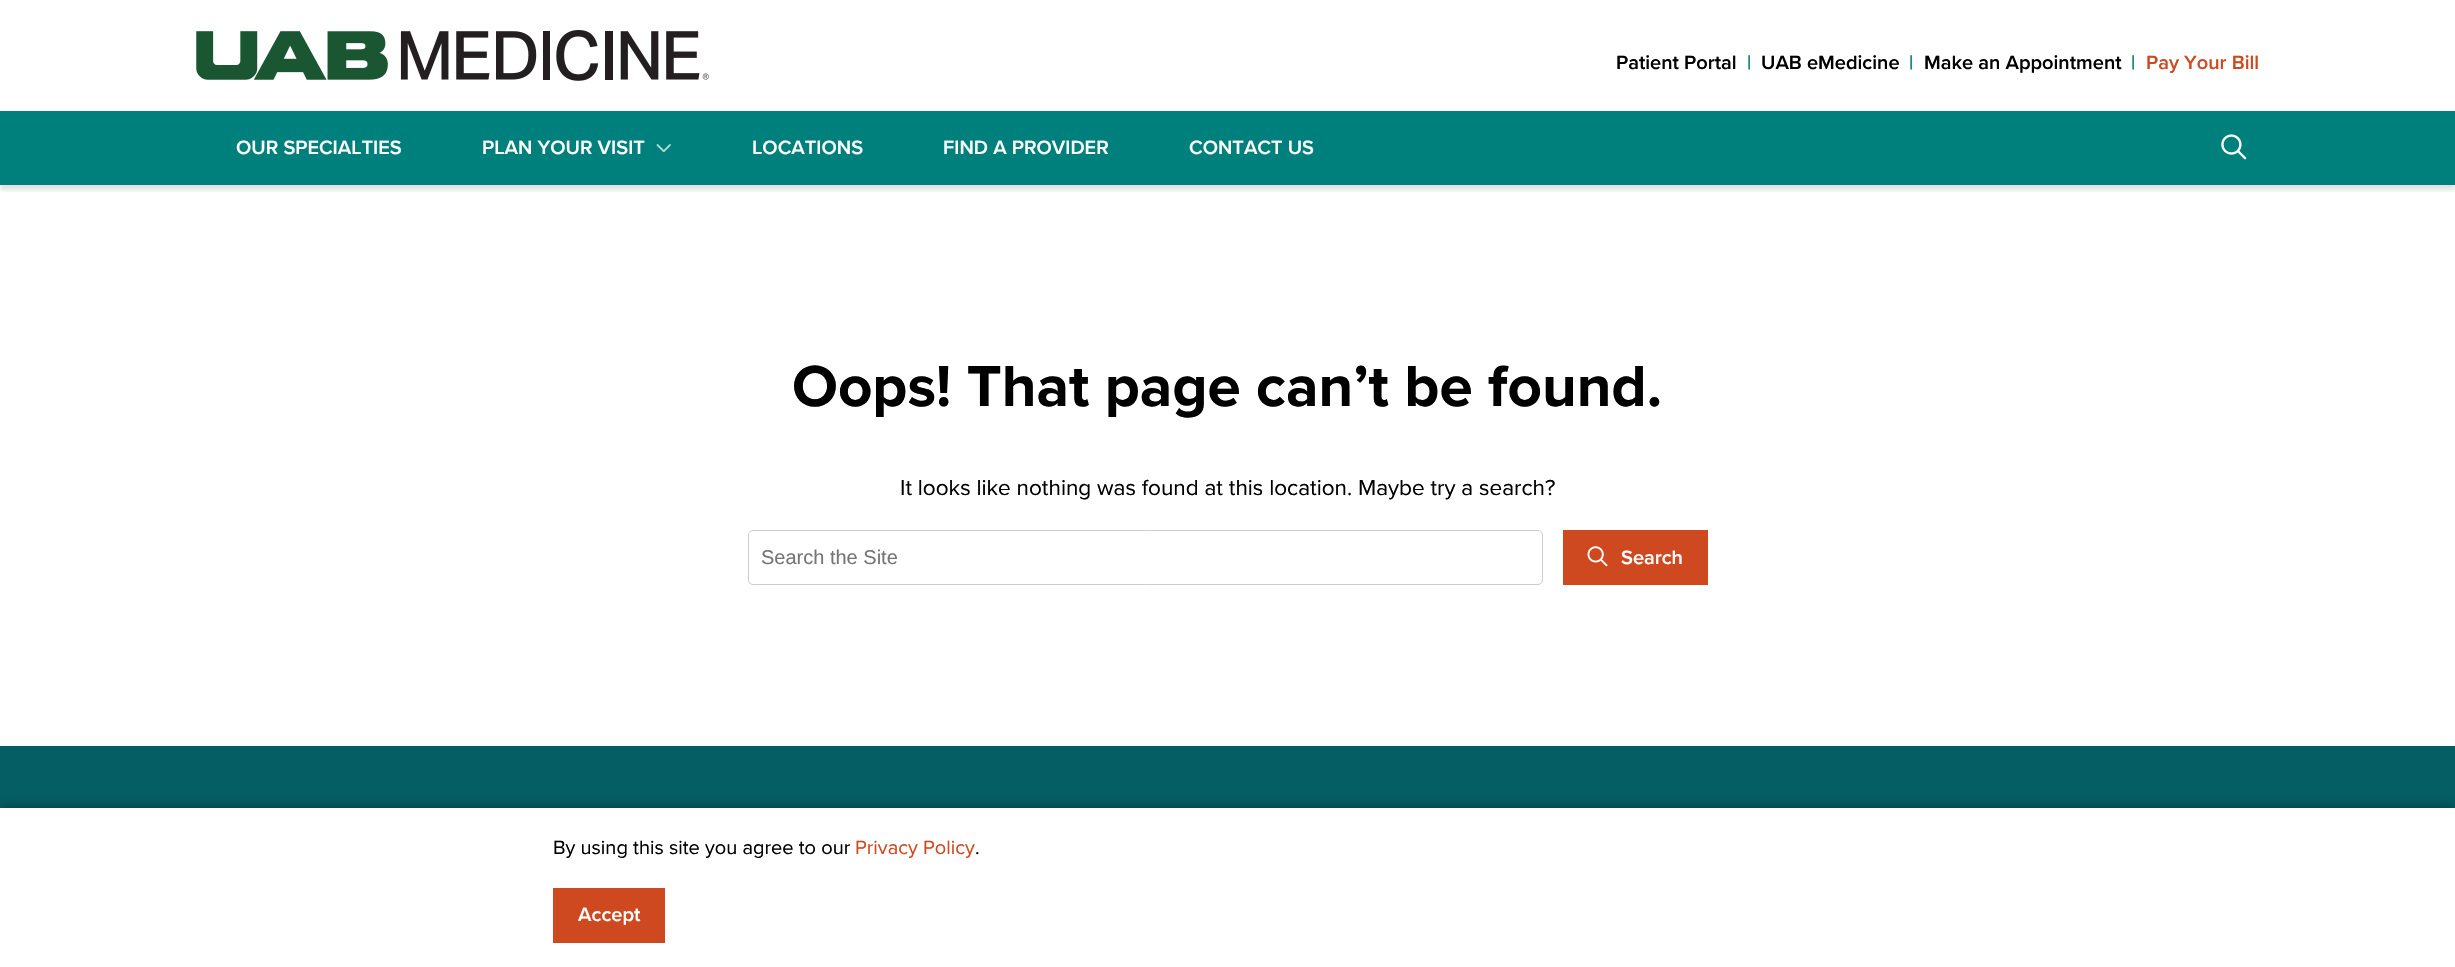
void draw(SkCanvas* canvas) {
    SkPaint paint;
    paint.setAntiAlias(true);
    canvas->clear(0xFFFFFFFF);
    canvas->save();
    canvas->clipRect(SkRect::MakeXYWH(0, 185, 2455, 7));
    paint.setColor(0x1F000000);
    paint.setMaskFilter(SkMaskFilter::MakeBlur(kNormal_SkBlurStyle, 2.5f));
    canvas->drawRect(SkRect::MakeXYWH(0, 5, 2455, 185), paint);
    paint.setMaskFilter(nullptr);
    canvas->restore();
    canvas->drawImageRect(SkImages::DeferredFromEncodedData(SkData::MakeFromFileName("img1.png")), SkRect::MakeXYWH(196, 30, 513, 51), SkSamplingOptions());
    paint.setColor(0xFF00807C);
    canvas->drawRect(SkRect::MakeXYWH(0, 111, 2455, 74), paint);
    SkFont font1(fontMgr->matchFamilyStyle("Proxima Nova", SkFontStyle(600, SkFontStyle::kNormal_Width, SkFontStyle::kUpright_Slant)), 20);
    font1.setSubpixel(true);
    paint.setColor(0xFF000000);
    canvas->drawString("Patient Portal", 1616, 69, font1, paint);
    paint.setColor(0xFF00807C);
    canvas->drawString("|", 1747, 69, font1, paint);
    paint.setColor(0xFF000000);
    canvas->drawString("UAB eMedicine", 1761, 69, font1, paint);
    paint.setColor(0xFF00807C);
    canvas->drawString("|", 1909, 69, font1, paint);
    paint.setColor(0xFF000000);
    canvas->drawString("Make an Appointment", 1924, 69, font1, paint);
    paint.setColor(0xFF00807C);
    canvas->drawString("|", 2131, 69, font1, paint);
    paint.setColor(0xFFCF4920);
    canvas->drawString("Pay Your Bill", 2146, 69, font1, paint);
    paint.setColor(0xFFFFFFFF);
    canvas->drawString("OUR SPECIALTIES", 236, 154, font1, paint);
    canvas->drawString("PLAN YOUR VISIT", 482, 154, font1, paint);
    canvas->drawImageRect(SkImages::DeferredFromEncodedData(SkData::MakeFromFileName("img2.png")), SkRect::MakeXYWH(656, 144, 15, 9), SkSamplingOptions());
    canvas->drawString("LOCATIONS", 752, 154, font1, paint);
    canvas->drawString("FIND A PROVIDER", 943, 154, font1, paint);
    canvas->drawString("CONTACT US", 1189, 154, font1, paint);
    canvas->drawImageRect(SkImages::DeferredFromEncodedData(SkData::MakeFromFileName("img3.png")), SkRect::MakeXYWH(2221, 134, 26, 26), SkSamplingOptions());
    SkFont font2(fontMgr->matchFamilyStyle("Proxima Nova", SkFontStyle::Bold()), 60);
    font2.setSubpixel(true);
    paint.setColor(0xFF000000);
    canvas->drawString("Oops! That page can’t be found.", 792, 406, font2, paint);
    SkFont font3(fontMgr->matchFamilyStyle("Proxima Nova", SkFontStyle::Normal()), 22.5f);
    font3.setSubpixel(true);
    canvas->drawString("It looks like nothing was found at this location. Maybe try a search?", 900, 495, font3, paint);
    paint.setStyle(SkPaint::kStroke_Style);
    paint.setStrokeWidth(1);
    paint.setColor(0xFFCCCCCC);
    canvas->drawRoundRect(SkRect::MakeXYWH(748.5f, 530.5f, 794, 54), 4.5f, 4.5f, paint);
    SkFont font4(fontMgr->matchFamilyStyle("Liberation Sans", SkFontStyle::Normal()), 20);
    font4.setSubpixel(true);
    paint.setStyle(SkPaint::kFill_Style);
    paint.setColor(0xFF757575);
    canvas->drawString("Search the Site", 761, 564, font4, paint);
    paint.setColor(0xFFCF4920);
    canvas->drawRect(SkRect::MakeXYWH(1563, 530, 145, 55), paint);
    canvas->drawImageRect(SkImages::DeferredFromEncodedData(SkData::MakeFromFileName("img4.png")), SkRect::MakeXYWH(1587, 546, 21, 21), SkSamplingOptions());
    paint.setColor(0xFFFFFFFF);
    canvas->drawString("Search", 1621, 564, font1, paint);
    paint.setColor(0xFF055E63);
    canvas->drawRect(SkRect::MakeXYWH(0, 746, 2455, 62), paint);
    paint.setColor(0x40000000);
    paint.setMaskFilter(SkMaskFilter::MakeBlur(kNormal_SkBlurStyle, 4.5f));
    canvas->drawRect(SkRect::MakeXYWH(0, 805, 2455, 160), paint);
    paint.setMaskFilter(nullptr);
    paint.setColor(0xFFFFFFFF);
    canvas->drawRect(SkRect::MakeXYWH(0, 808, 2455, 159), paint);
    SkFont font5(fontMgr->matchFamilyStyle("Proxima Nova", SkFontStyle::Normal()), 20);
    font5.setSubpixel(true);
    paint.setColor(0xFF000000);
    canvas->drawString("By using this site you agree to our", 553, 854, font5, paint);
    paint.setColor(0xFFCF4920);
    canvas->drawString("Privacy Policy", 855, 854, font5, paint);
    paint.setColor(0xFF000000);
    canvas->drawString(".", 975, 854, font5, paint);
    paint.setColor(0xFFCF4920);
    canvas->drawRect(SkRect::MakeXYWH(553, 888, 112, 55), paint);
    paint.setColor(0xFFFFFFFF);
    canvas->drawString("Accept", 578, 921, font1, paint);
}
